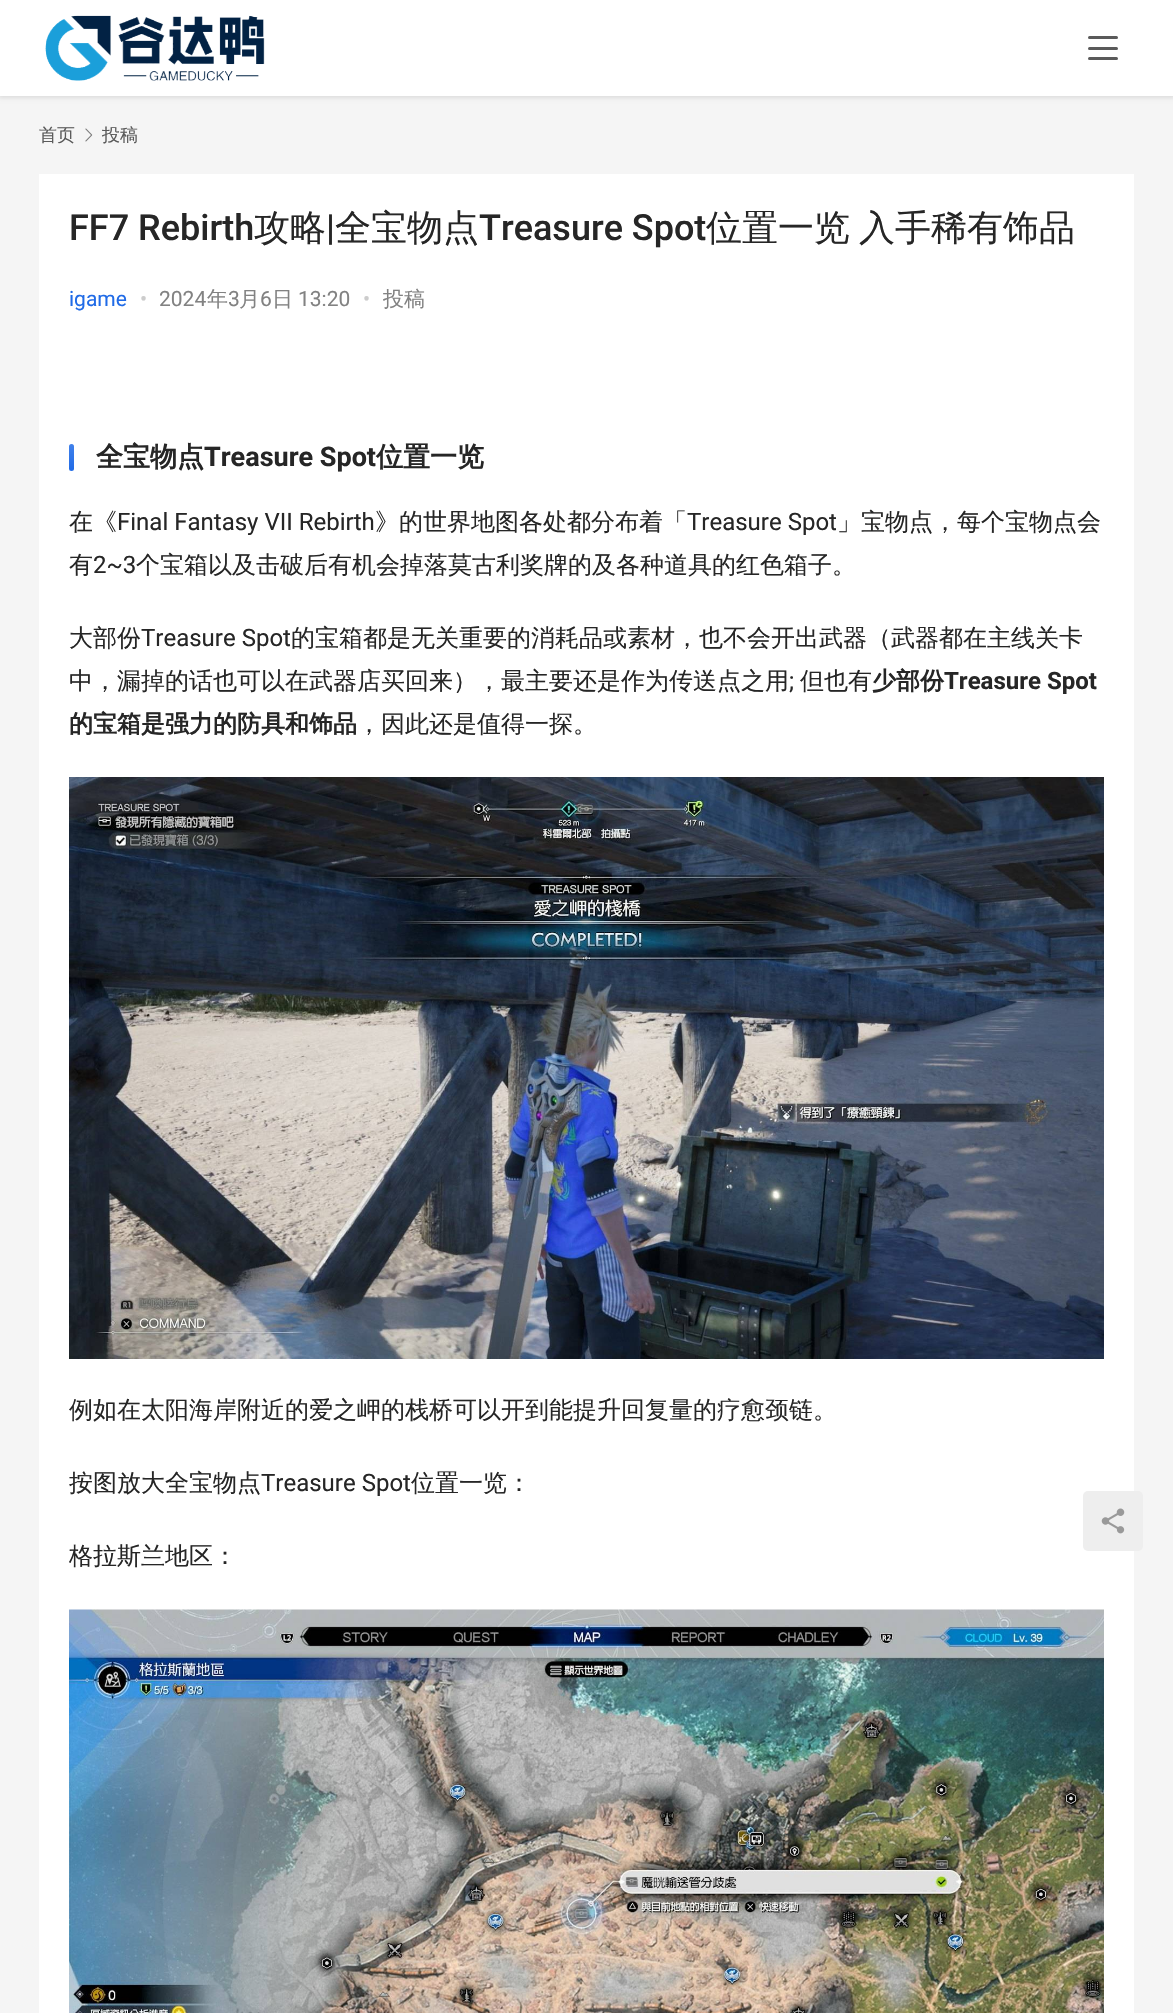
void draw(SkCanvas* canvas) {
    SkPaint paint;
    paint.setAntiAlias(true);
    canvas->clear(0xFFF5F5F5);
    paint.setColor(0x1A000000);
    paint.setMaskFilter(SkMaskFilter::MakeBlur(kNormal_SkBlurStyle, 2));
    canvas->drawRect(SkRect::MakeXYWH(-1, -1, 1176, 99), paint);
    paint.setMaskFilter(nullptr);
    paint.setColor(0xFFFFFFFF);
    canvas->drawRect(SkRect::MakeXYWH(0, 0, 1173, 96), paint);
    canvas->drawImageRect(SkImages::DeferredFromEncodedData(SkData::MakeFromFileName("img1.png")), SkRect::MakeXYWH(45, 15, 220, 66), SkSamplingOptions());
    paint.setColor(0xFF5A5A5A);
    canvas->drawRoundRect(SkRect::MakeXYWH(1088, 36, 30, 3), 1.5f, 1.5f, paint);
    canvas->drawRoundRect(SkRect::MakeXYWH(1088, 47, 30, 3), 1.5f, 1.5f, paint);
    canvas->drawRoundRect(SkRect::MakeXYWH(1088, 57, 30, 3), 1.5f, 1.5f, paint);
    SkFont font1(fontMgr->matchFamilyStyle("WenQuanYi Zen Hei", SkFontStyle(500, SkFontStyle::kNormal_Width, SkFontStyle::kUpright_Slant)), 18);
    font1.setSubpixel(true);
    canvas->drawString("首页", 39, 141, font1, paint);
    canvas->drawImageRect(SkImages::DeferredFromEncodedData(SkData::MakeFromFileName("img2.png")), SkRect::MakeXYWH(85, 128, 8, 14), SkSamplingOptions());
    canvas->drawString("投稿", 102, 141, font1, paint);
    paint.setColor(0xFFFFFFFF);
    canvas->drawRect(SkRect::MakeXYWH(39, 174, 1095, 1839), paint);
    SkFont font2(fontMgr->matchFamilyStyle("Roboto", SkFontStyle(500, SkFontStyle::kNormal_Width, SkFontStyle::kUpright_Slant)), 36);
    font2.setSubpixel(true);
    paint.setColor(0xFF262626);
    canvas->drawString("FF7 Rebirth", 69, 240, font2, paint);
    SkFont font3(fontMgr->matchFamilyStyle("WenQuanYi Zen Hei", SkFontStyle(500, SkFontStyle::kNormal_Width, SkFontStyle::kUpright_Slant)), 36);
    font3.setSubpixel(true);
    canvas->drawString("攻略", 254, 240, font3, paint);
    canvas->drawString("|", 326, 240, font2, paint);
    canvas->drawString("全宝物点", 335, 240, font3, paint);
    canvas->drawString("Treasure Spot", 479, 240, font2, paint);
    canvas->drawString("位置一览", 706, 240, font3, paint);
    canvas->drawString("入手稀有饰品", 859, 240, font3, paint);
    SkFont font4(fontMgr->matchFamilyStyle("Roboto", SkFontStyle::Normal()), 21);
    font4.setSubpixel(true);
    paint.setColor(0xFF206BE7);
    canvas->drawString("igame", 69, 306, font4, paint);
    paint.setColor(0xFFCCCCCC);
    canvas->drawString("•", 140, 306, font4, paint);
    paint.setColor(0xFF828282);
    canvas->drawString("2024", 159, 306, font4, paint);
    SkFont font5(fontMgr->matchFamilyStyle("WenQuanYi Zen Hei", SkFontStyle(500, SkFontStyle::kNormal_Width, SkFontStyle::kUpright_Slant)), 21);
    font5.setSubpixel(true);
    canvas->drawString("年", 207, 306, font5, paint);
    canvas->drawString("3", 228, 306, font4, paint);
    canvas->drawString("月", 239, 306, font5, paint);
    canvas->drawString("6", 260, 306, font4, paint);
    canvas->drawString("日", 272, 306, font5, paint);
    canvas->drawString("13:20", 298, 306, font4, paint);
    paint.setColor(0xFFCCCCCC);
    canvas->drawString("•", 363, 306, font4, paint);
    paint.setColor(0xFF828282);
    canvas->drawString("投稿", 383, 306, font5, paint);
    paint.setColor(0xFF206BE7);
    canvas->drawRoundRect(SkRect::MakeXYWH(69, 444, 5, 27), 2.5f, 2.5f, paint);
    {
        const SkColor colors[] = {0x26FFFFFF, 0x00FFFFFF};
        const float stops[] = {0, 1};
        const SkPoint ends[] = {{71, 444}, {71, 471}};
        paint.setShader(SkGradientShader::MakeLinear(ends, colors, stops, 2, SkTileMode::kClamp));
        paint.setAlpha(255);
    }
    canvas->drawRoundRect(SkRect::MakeXYWH(69, 444, 5, 27), 2.5f, 2.5f, paint);
    SkFont font6(fontMgr->matchFamilyStyle("WenQuanYi Zen Hei", SkFontStyle::Bold()), 27);
    font6.setSubpixel(true);
    paint.setShader(nullptr);
    paint.setColor(0xFF262626);
    canvas->drawString("全宝物点", 96, 466, font6, paint);
    SkFont font7(fontMgr->matchFamilyStyle("Roboto", SkFontStyle::Bold()), 27);
    font7.setSubpixel(true);
    canvas->drawString("Treasure Spot", 204, 466, font7, paint);
    canvas->drawString("位置一览", 376, 466, font6, paint);
    SkFont font8(fontMgr->matchFamilyStyle("WenQuanYi Zen Hei", SkFontStyle(500, SkFontStyle::kNormal_Width, SkFontStyle::kUpright_Slant)), 24);
    font8.setSubpixel(true);
    canvas->drawString("在《", 69, 530, font8, paint);
    SkFont font9(fontMgr->matchFamilyStyle("Roboto", SkFontStyle::Normal()), 24);
    font9.setSubpixel(true);
    canvas->drawString("Final Fantasy VII Rebirth", 117, 530, font9, paint);
    canvas->drawString("》的世界地图各处都分布着「", 375, 530, font8, paint);
    canvas->drawString("Treasure Spot", 687, 530, font9, paint);
    canvas->drawString("」宝物点，每个宝物点会", 837, 530, font8, paint);
    canvas->drawString("有", 69, 573, font8, paint);
    canvas->drawString("2~3", 93, 573, font9, paint);
    canvas->drawString("个宝箱以及击破后有机会掉落莫古利奖牌的及各种道具的红色箱子。", 136, 573, font8, paint);
    canvas->drawString("大部份", 69, 646, font8, paint);
    canvas->drawString("Treasure Spot", 141, 646, font9, paint);
    canvas->drawString("的宝箱都是无关重要的消耗品或素材，也不会开出武器（武器都在主线关卡", 291, 646, font8, paint);
    canvas->drawString("中，漏掉的话也可以在武器店买回来），最主要还是作为传送点之用", 69, 689, font8, paint);
    canvas->drawString(";", 789, 689, font9, paint);
    canvas->drawString("但也有", 800, 689, font8, paint);
    SkFont font10(fontMgr->matchFamilyStyle("WenQuanYi Zen Hei", SkFontStyle::Bold()), 24);
    font10.setSubpixel(true);
    canvas->drawString("少部份", 872, 689, font10, paint);
    SkFont font11(fontMgr->matchFamilyStyle("Roboto", SkFontStyle::Bold()), 24);
    font11.setSubpixel(true);
    canvas->drawString("Treasure Spot", 944, 689, font11, paint);
    canvas->drawString("的宝箱是强力的防具和饰品", 69, 732, font10, paint);
    canvas->drawString("，因此还是值得一探。", 357, 732, font8, paint);
    canvas->drawImageRect(SkImages::DeferredFromEncodedData(SkData::MakeFromFileName("img3.png")), SkRect::MakeXYWH(69, 777, 1035, 582), SkSamplingOptions());
    canvas->drawString("例如在太阳海岸附近的爱之岬的栈桥可以开到能提升回复量的疗愈颈链。", 69, 1418, font8, paint);
    canvas->drawString("按图放大全宝物点", 69, 1491, font8, paint);
    canvas->drawString("Treasure Spot", 261, 1491, font9, paint);
    canvas->drawString("位置一览：", 411, 1491, font8, paint);
    canvas->drawString("格拉斯兰地区：", 69, 1564, font8, paint);
    canvas->drawImageRect(SkImages::DeferredFromEncodedData(SkData::MakeFromFileName("img4.png")), SkRect::MakeXYWH(69, 1609, 1035, 404), SkSamplingOptions());
    paint.setColor(0xFFEEEEEE);
    canvas->drawRoundRect(SkRect::MakeXYWH(1083, 1491, 60, 60), 5, 5, paint);
    canvas->drawImageRect(SkImages::DeferredFromEncodedData(SkData::MakeFromFileName("img5.png")), SkRect::MakeXYWH(1101, 1508, 24, 26), SkSamplingOptions());
}
